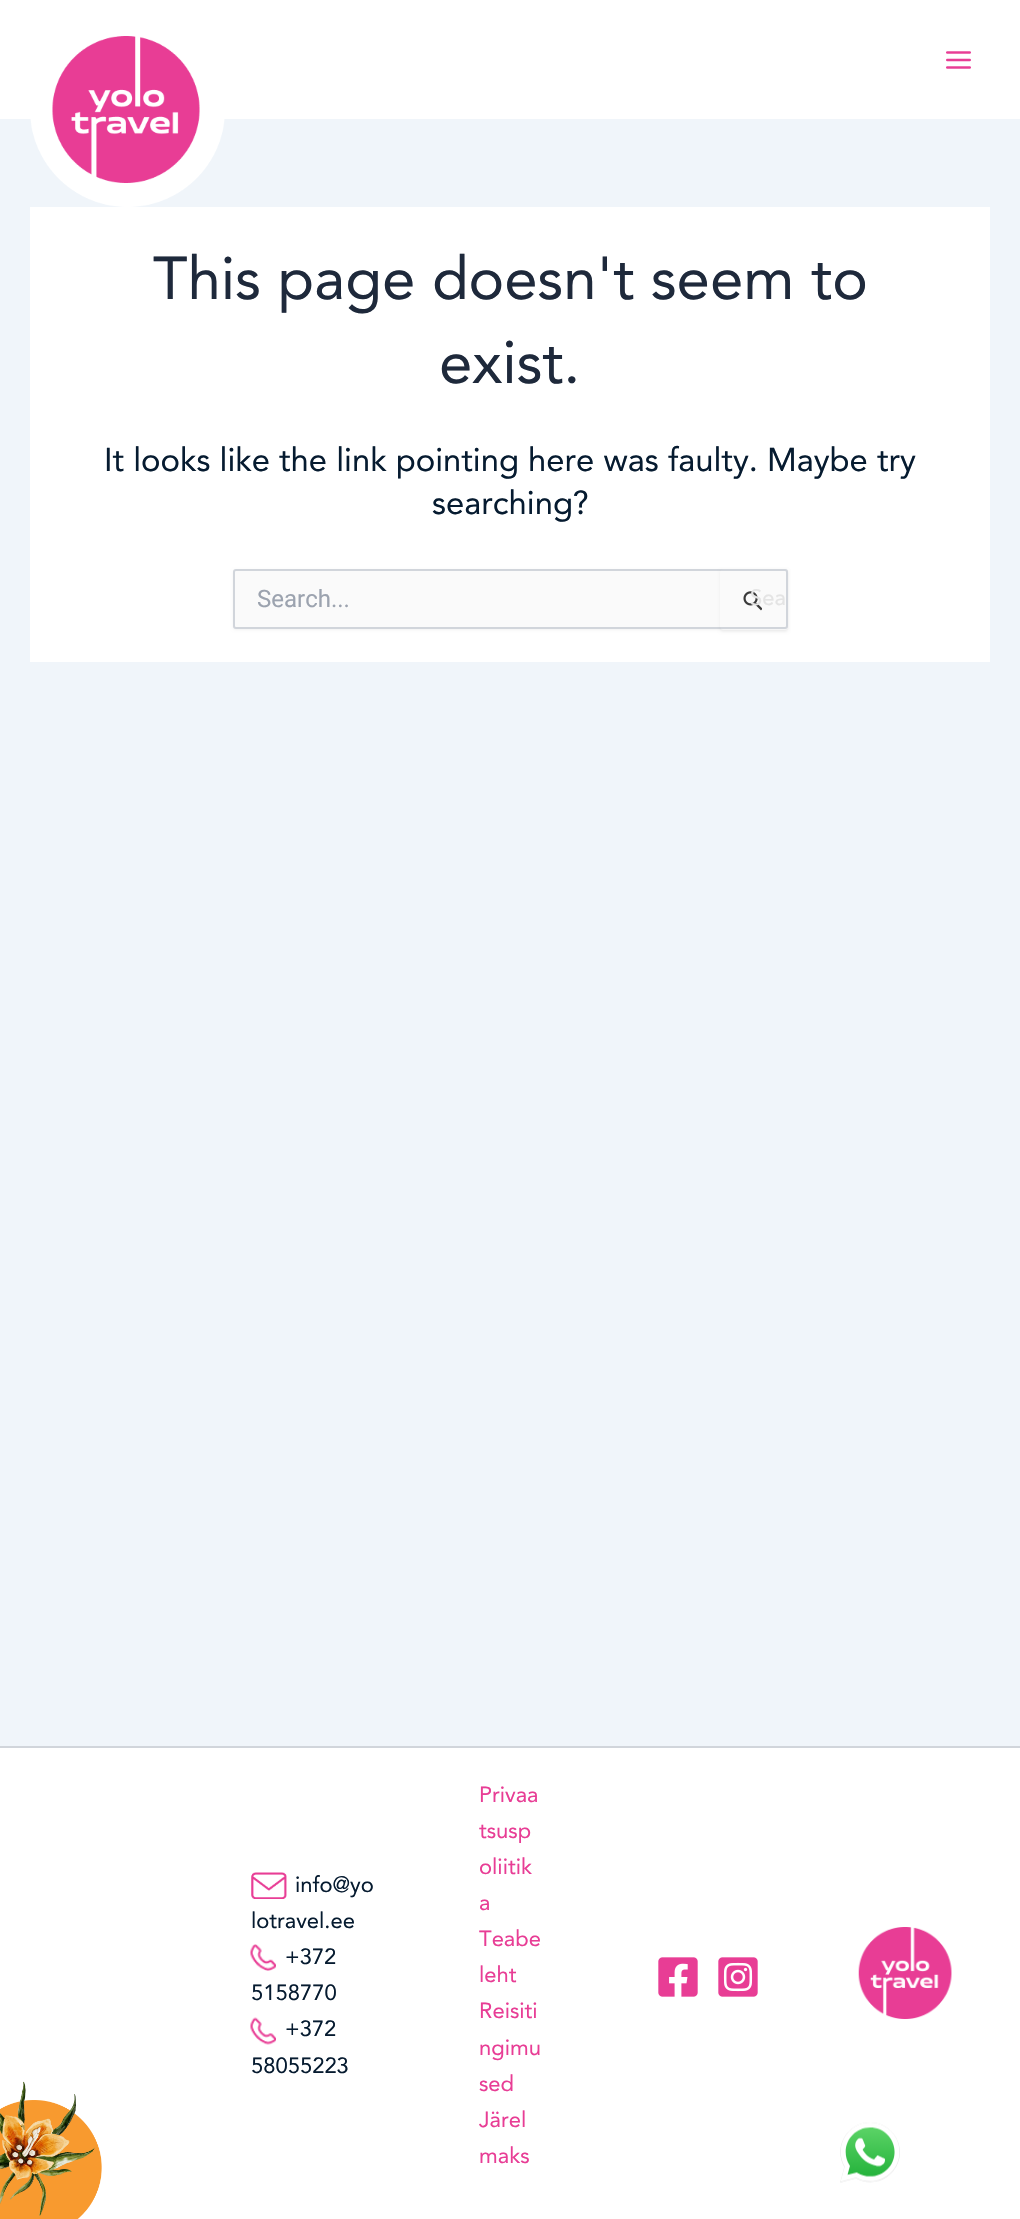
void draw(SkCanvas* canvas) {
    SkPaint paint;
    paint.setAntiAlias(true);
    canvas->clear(0xFFF0F5FA);
    paint.setColor(0xFFFFFFFF);
    canvas->drawRect(SkRect::MakeXYWH(0, 0, 1020, 119), paint);
    canvas->drawImageRect(SkImages::DeferredFromEncodedData(SkData::MakeFromFileName("img1.png")), SkRect::MakeXYWH(30, 36, 195, 171), SkSamplingOptions());
    canvas->drawImageRect(SkImages::DeferredFromEncodedData(SkData::MakeFromFileName("img2.png")), SkRect::MakeXYWH(946, 51, 25, 18), SkSamplingOptions());
    canvas->drawRect(SkRect::MakeXYWH(30, 207, 960, 455), paint);
    SkFont font1(fontMgr->matchFamilyStyle("Avenir", SkFontStyle::Normal()), 60);
    font1.setSubpixel(true);
    paint.setColor(0xFF1E293B);
    canvas->drawString("This page doesn't seem to", 153, 299, font1, paint);
    canvas->drawString("exist.", 439, 383, font1, paint);
    SkFont font2(fontMgr->matchFamilyStyle("Avenir", SkFontStyle::Normal()), 32.8f);
    font2.setSubpixel(true);
    paint.setColor(0xFF061B30);
    canvas->drawString("It looks like the link pointing here was faulty. Maybe try", 104, 471, font2, paint);
    canvas->drawString("searching?", 432, 514, font2, paint);
    paint.setColor(0x0D000000);
    paint.setMaskFilter(SkMaskFilter::MakeBlur(kNormal_SkBlurStyle, 1.5f));
    canvas->drawRoundRect(SkRect::MakeXYWH(233, 570, 555, 60), 3, 3, paint);
    paint.setMaskFilter(nullptr);
    paint.setColor(0xFFFAFAFA);
    canvas->drawRoundRect(SkRect::MakeXYWH(234, 570, 553, 58), 2, 2, paint);
    paint.setStyle(SkPaint::kStroke_Style);
    paint.setStrokeWidth(2);
    paint.setColor(0xFFD1D5DB);
    canvas->drawRoundRect(SkRect::MakeXYWH(234, 570, 553, 58), 2, 2, paint);
    SkFont font3(fontMgr->matchFamilyStyle("Roboto", SkFontStyle::Normal()), 24);
    font3.setSubpixel(true);
    paint.setStyle(SkPaint::kFill_Style);
    paint.setColor(0xFF9CA3AF);
    canvas->drawString("Search...", 257, 607, font3, paint);
    canvas->drawImageRect(SkImages::DeferredFromEncodedData(SkData::MakeFromFileName("img3.png")), SkRect::MakeXYWH(743, 591, 19, 20), SkSamplingOptions());
    canvas->save();
    canvas->clipPath(SkPathBuilder(SkPathFillType::kEvenOdd).moveTo(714, 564).lineTo(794, 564).lineTo(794, 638).lineTo(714, 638).close().moveTo(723, 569).lineTo(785, 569).cubicTo(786.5f, 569, 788, 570.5f, 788, 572).lineTo(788, 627).cubicTo(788, 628.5f, 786.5f, 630, 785, 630).lineTo(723, 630).cubicTo(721.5f, 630, 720, 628.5f, 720, 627).lineTo(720, 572).cubicTo(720, 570.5f, 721.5f, 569, 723, 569).close().detach(), true);
    paint.setColor(0x0D000000);
    paint.setMaskFilter(SkMaskFilter::MakeBlur(kNormal_SkBlurStyle, 1.5f));
    canvas->drawRoundRect(SkRect::MakeXYWH(720, 570, 68, 62), 3, 3, paint);
    paint.setMaskFilter(nullptr);
    canvas->restore();
    SkFont font4(fontMgr->matchFamilyStyle("Avenir", SkFontStyle::Normal()), 22);
    font4.setSubpixel(true);
    paint.setColor(0xFFE4E4E4);
    canvas->drawString("Sea", 750, 605, font4, paint);
    paint.setColor(0xFFFFFFFF);
    canvas->drawRect(SkRect::MakeXYWH(0, 1748, 1020, 471), paint);
    paint.setColor(0xFFD1D5DB);
    canvas->drawRect(SkRect::MakeXYWH(0, 1746, 1020, 2), paint);
    canvas->drawImageRect(SkImages::DeferredFromEncodedData(SkData::MakeFromFileName("img4.png")), SkRect::MakeXYWH(251, 1872, 36, 27), SkSamplingOptions());
    paint.setColor(0xFF061B30);
    canvas->drawString("info@yo", 295, 1892, font4, paint);
    canvas->drawString("lotravel.ee", 251, 1928, font4, paint);
    canvas->drawImageRect(SkImages::DeferredFromEncodedData(SkData::MakeFromFileName("img5.png")), SkRect::MakeXYWH(250, 1944, 26, 27), SkSamplingOptions());
    canvas->drawString("+372", 285, 1964, font4, paint);
    canvas->drawString("5158770", 251, 2000, font4, paint);
    canvas->drawImageRect(SkImages::DeferredFromEncodedData(SkData::MakeFromFileName("img6.png")), SkRect::MakeXYWH(250, 2017, 26, 28), SkSamplingOptions());
    canvas->drawString("+372", 285, 2036, font4, paint);
    canvas->drawString("58055223", 251, 2073, font4, paint);
    paint.setColor(0xFFE83D95);
    canvas->drawString("Privaa", 479, 1802, font4, paint);
    canvas->drawString("tsusp", 479, 1838, font4, paint);
    canvas->drawString("oliitik", 479, 1874, font4, paint);
    canvas->drawString("a", 479, 1910, font4, paint);
    canvas->drawString("Teabe", 479, 1946, font4, paint);
    canvas->drawString("leht", 479, 1982, font4, paint);
    canvas->drawString("Reisiti", 479, 2018, font4, paint);
    canvas->drawString("ngimu", 479, 2055, font4, paint);
    canvas->drawString("sed", 479, 2091, font4, paint);
    canvas->drawString("Järel", 479, 2127, font4, paint);
    canvas->drawString("maks", 479, 2163, font4, paint);
    canvas->drawImageRect(SkImages::DeferredFromEncodedData(SkData::MakeFromFileName("img7.png")), SkRect::MakeXYWH(658, 1957, 40, 40), SkSamplingOptions());
    canvas->drawImageRect(SkImages::DeferredFromEncodedData(SkData::MakeFromFileName("img8.png")), SkRect::MakeXYWH(718, 1957, 40, 40), SkSamplingOptions());
    canvas->drawImageRect(SkImages::DeferredFromEncodedData(SkData::MakeFromFileName("img9.png")), SkRect::MakeXYWH(858, 1927, 94, 92), SkSamplingOptions());
    canvas->drawImageRect(SkImages::DeferredFromEncodedData(SkData::MakeFromFileName("img10.png")), SkRect::MakeXYWH(0, 2081, 102, 138), SkSamplingOptions());
    canvas->drawImageRect(SkImages::DeferredFromEncodedData(SkData::MakeFromFileName("img11.png")), SkRect::MakeXYWH(840, 2122, 60, 61), SkSamplingOptions());
}
